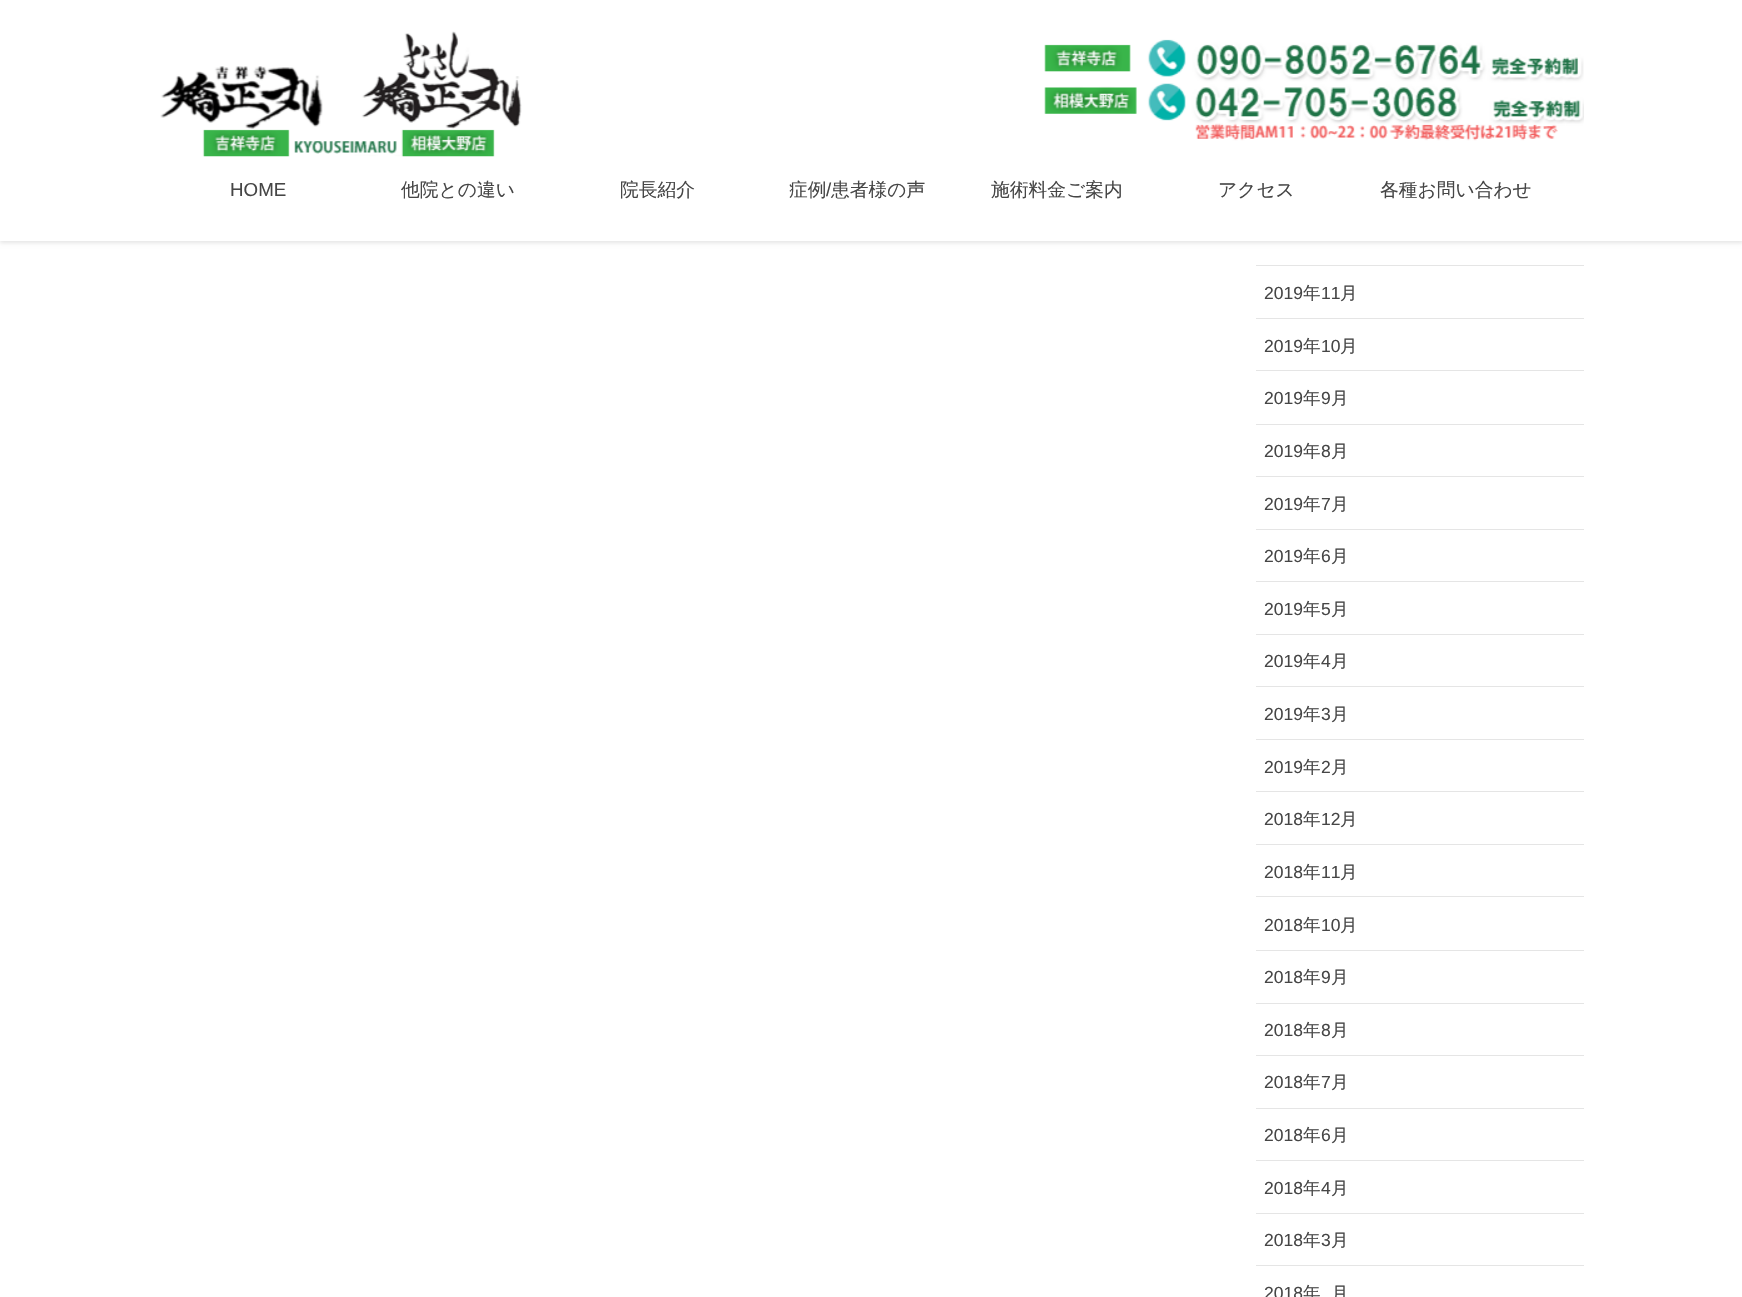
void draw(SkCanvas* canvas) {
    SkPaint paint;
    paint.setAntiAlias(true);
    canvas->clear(0xFFFFFFFF);
    paint.setColor(0x1A000000);
    paint.setMaskFilter(SkMaskFilter::MakeBlur(kNormal_SkBlurStyle, 2));
    canvas->drawRect(SkRect::MakeXYWH(0, 1, 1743, 242), paint);
    paint.setMaskFilter(nullptr);
    paint.setColor(0xFFFFFFFF);
    canvas->drawRect(SkRect::MakeXYWH(0, 0, 1742, 241), paint);
    canvas->drawImageRect(SkImages::DeferredFromEncodedData(SkData::MakeFromFileName("img1.png")), SkRect::MakeXYWH(160, 31, 362, 126), SkSamplingOptions());
    canvas->drawImageRect(SkImages::DeferredFromEncodedData(SkData::MakeFromFileName("img2.png")), SkRect::MakeXYWH(1044, 39, 540, 102), SkSamplingOptions());
    SkFont font1(fontMgr->matchFamilyStyle("Liberation Sans", SkFontStyle::Normal()), 18.75f);
    font1.setSubpixel(true);
    paint.setColor(0xFF464646);
    canvas->drawString("HOME", 230, 196, font1, paint);
    SkFont font2(fontMgr->matchFamilyStyle("WenQuanYi Zen Hei", SkFontStyle(500, SkFontStyle::kNormal_Width, SkFontStyle::kUpright_Slant)), 18.75f);
    font2.setSubpixel(true);
    canvas->drawString("他院との違い", 401, 196, font2, paint);
    canvas->drawString("院長紹介", 620, 196, font2, paint);
    canvas->drawString("症例", 789, 196, font2, paint);
    canvas->drawString("/", 826, 196, font1, paint);
    canvas->drawString("患者様の声", 831, 196, font2, paint);
    canvas->drawString("施術料金ご案内", 991, 196, font2, paint);
    canvas->drawString("アクセス", 1218, 196, font2, paint);
    canvas->drawString("各種お問い合わせ", 1380, 196, font2, paint);
    paint.setColor(0xFFE5E5E5);
    canvas->drawRect(SkRect::MakeXYWH(1256, 265, 328, 1), paint);
    canvas->drawRect(SkRect::MakeXYWH(1256, 318, 328, 1), paint);
    SkFont font3(fontMgr->matchFamilyStyle("Liberation Sans", SkFontStyle::Normal()), 17.5f);
    font3.setSubpixel(true);
    paint.setColor(0xFF464646);
    canvas->drawString("2019", 1264, 299, font3, paint);
    SkFont font4(fontMgr->matchFamilyStyle("WenQuanYi Zen Hei", SkFontStyle(500, SkFontStyle::kNormal_Width, SkFontStyle::kUpright_Slant)), 17.5f);
    font4.setSubpixel(true);
    canvas->drawString("年", 1303, 299, font4, paint);
    canvas->drawString("11", 1321, 299, font3, paint);
    canvas->drawString("月", 1340, 299, font4, paint);
    paint.setColor(0xFFE5E5E5);
    canvas->drawRect(SkRect::MakeXYWH(1256, 370, 328, 1), paint);
    paint.setColor(0xFF464646);
    canvas->drawString("2019", 1264, 352, font3, paint);
    canvas->drawString("年", 1303, 352, font4, paint);
    canvas->drawString("10", 1321, 352, font3, paint);
    canvas->drawString("月", 1340, 352, font4, paint);
    paint.setColor(0xFFE5E5E5);
    canvas->drawRect(SkRect::MakeXYWH(1256, 424, 328, 1), paint);
    paint.setColor(0xFF464646);
    canvas->drawString("2019", 1264, 404, font3, paint);
    canvas->drawString("年", 1303, 404, font4, paint);
    canvas->drawString("9", 1321, 404, font3, paint);
    canvas->drawString("月", 1331, 404, font4, paint);
    paint.setColor(0xFFE5E5E5);
    canvas->drawRect(SkRect::MakeXYWH(1256, 476, 328, 1), paint);
    paint.setColor(0xFF464646);
    canvas->drawString("2019", 1264, 457, font3, paint);
    canvas->drawString("年", 1303, 457, font4, paint);
    canvas->drawString("8", 1321, 457, font3, paint);
    canvas->drawString("月", 1331, 457, font4, paint);
    paint.setColor(0xFFE5E5E5);
    canvas->drawRect(SkRect::MakeXYWH(1256, 529, 328, 1), paint);
    paint.setColor(0xFF464646);
    canvas->drawString("2019", 1264, 510, font3, paint);
    canvas->drawString("年", 1303, 510, font4, paint);
    canvas->drawString("7", 1321, 510, font3, paint);
    canvas->drawString("月", 1331, 510, font4, paint);
    paint.setColor(0xFFE5E5E5);
    canvas->drawRect(SkRect::MakeXYWH(1256, 581, 328, 1), paint);
    paint.setColor(0xFF464646);
    canvas->drawString("2019", 1264, 562, font3, paint);
    canvas->drawString("年", 1303, 562, font4, paint);
    canvas->drawString("6", 1321, 562, font3, paint);
    canvas->drawString("月", 1331, 562, font4, paint);
    paint.setColor(0xFFE5E5E5);
    canvas->drawRect(SkRect::MakeXYWH(1256, 634, 328, 1), paint);
    paint.setColor(0xFF464646);
    canvas->drawString("2019", 1264, 615, font3, paint);
    canvas->drawString("年", 1303, 615, font4, paint);
    canvas->drawString("5", 1321, 615, font3, paint);
    canvas->drawString("月", 1331, 615, font4, paint);
    paint.setColor(0xFFE5E5E5);
    canvas->drawRect(SkRect::MakeXYWH(1256, 686, 328, 1), paint);
    paint.setColor(0xFF464646);
    canvas->drawString("2019", 1264, 667, font3, paint);
    canvas->drawString("年", 1303, 667, font4, paint);
    canvas->drawString("4", 1321, 667, font3, paint);
    canvas->drawString("月", 1331, 667, font4, paint);
    paint.setColor(0xFFE5E5E5);
    canvas->drawRect(SkRect::MakeXYWH(1256, 739, 328, 1), paint);
    paint.setColor(0xFF464646);
    canvas->drawString("2019", 1264, 720, font3, paint);
    canvas->drawString("年", 1303, 720, font4, paint);
    canvas->drawString("3", 1321, 720, font3, paint);
    canvas->drawString("月", 1331, 720, font4, paint);
    paint.setColor(0xFFE5E5E5);
    canvas->drawRect(SkRect::MakeXYWH(1256, 791, 328, 1), paint);
    paint.setColor(0xFF464646);
    canvas->drawString("2019", 1264, 773, font3, paint);
    canvas->drawString("年", 1303, 773, font4, paint);
    canvas->drawString("2", 1321, 773, font3, paint);
    canvas->drawString("月", 1331, 773, font4, paint);
    paint.setColor(0xFFE5E5E5);
    canvas->drawRect(SkRect::MakeXYWH(1256, 844, 328, 1), paint);
    paint.setColor(0xFF464646);
    canvas->drawString("2018", 1264, 825, font3, paint);
    canvas->drawString("年", 1303, 825, font4, paint);
    canvas->drawString("12", 1321, 825, font3, paint);
    canvas->drawString("月", 1340, 825, font4, paint);
    paint.setColor(0xFFE5E5E5);
    canvas->drawRect(SkRect::MakeXYWH(1256, 896, 328, 1), paint);
    paint.setColor(0xFF464646);
    canvas->drawString("2018", 1264, 878, font3, paint);
    canvas->drawString("年", 1303, 878, font4, paint);
    canvas->drawString("11", 1321, 878, font3, paint);
    canvas->drawString("月", 1340, 878, font4, paint);
    paint.setColor(0xFFE5E5E5);
    canvas->drawRect(SkRect::MakeXYWH(1256, 950, 328, 1), paint);
    paint.setColor(0xFF464646);
    canvas->drawString("2018", 1264, 931, font3, paint);
    canvas->drawString("年", 1303, 931, font4, paint);
    canvas->drawString("10", 1321, 931, font3, paint);
    canvas->drawString("月", 1340, 931, font4, paint);
    paint.setColor(0xFFE5E5E5);
    canvas->drawRect(SkRect::MakeXYWH(1256, 1003, 328, 1), paint);
    paint.setColor(0xFF464646);
    canvas->drawString("2018", 1264, 983, font3, paint);
    canvas->drawString("年", 1303, 983, font4, paint);
    canvas->drawString("9", 1321, 983, font3, paint);
    canvas->drawString("月", 1331, 983, font4, paint);
    paint.setColor(0xFFE5E5E5);
    canvas->drawRect(SkRect::MakeXYWH(1256, 1055, 328, 1), paint);
    paint.setColor(0xFF464646);
    canvas->drawString("2018", 1264, 1036, font3, paint);
    canvas->drawString("年", 1303, 1036, font4, paint);
    canvas->drawString("8", 1321, 1036, font3, paint);
    canvas->drawString("月", 1331, 1036, font4, paint);
    paint.setColor(0xFFE5E5E5);
    canvas->drawRect(SkRect::MakeXYWH(1256, 1108, 328, 1), paint);
    paint.setColor(0xFF464646);
    canvas->drawString("2018", 1264, 1088, font3, paint);
    canvas->drawString("年", 1303, 1088, font4, paint);
    canvas->drawString("7", 1321, 1088, font3, paint);
    canvas->drawString("月", 1331, 1088, font4, paint);
    paint.setColor(0xFFE5E5E5);
    canvas->drawRect(SkRect::MakeXYWH(1256, 1160, 328, 1), paint);
    paint.setColor(0xFF464646);
    canvas->drawString("2018", 1264, 1141, font3, paint);
    canvas->drawString("年", 1303, 1141, font4, paint);
    canvas->drawString("6", 1321, 1141, font3, paint);
    canvas->drawString("月", 1331, 1141, font4, paint);
    paint.setColor(0xFFE5E5E5);
    canvas->drawRect(SkRect::MakeXYWH(1256, 1213, 328, 1), paint);
    paint.setColor(0xFF464646);
    canvas->drawString("2018", 1264, 1194, font3, paint);
    canvas->drawString("年", 1303, 1194, font4, paint);
    canvas->drawString("4", 1321, 1194, font3, paint);
    canvas->drawString("月", 1331, 1194, font4, paint);
    paint.setColor(0xFFE5E5E5);
    canvas->drawRect(SkRect::MakeXYWH(1256, 1265, 328, 1), paint);
    paint.setColor(0xFF464646);
    canvas->drawString("2018", 1264, 1246, font3, paint);
    canvas->drawString("年", 1303, 1246, font4, paint);
    canvas->drawString("3", 1321, 1246, font3, paint);
    canvas->drawString("月", 1331, 1246, font4, paint);
    canvas->drawString("2018", 1264, 1299, font3, paint);
    canvas->drawString("年", 1303, 1299, font4, paint);
    canvas->drawString("月", 1331, 1299, font4, paint);
}
